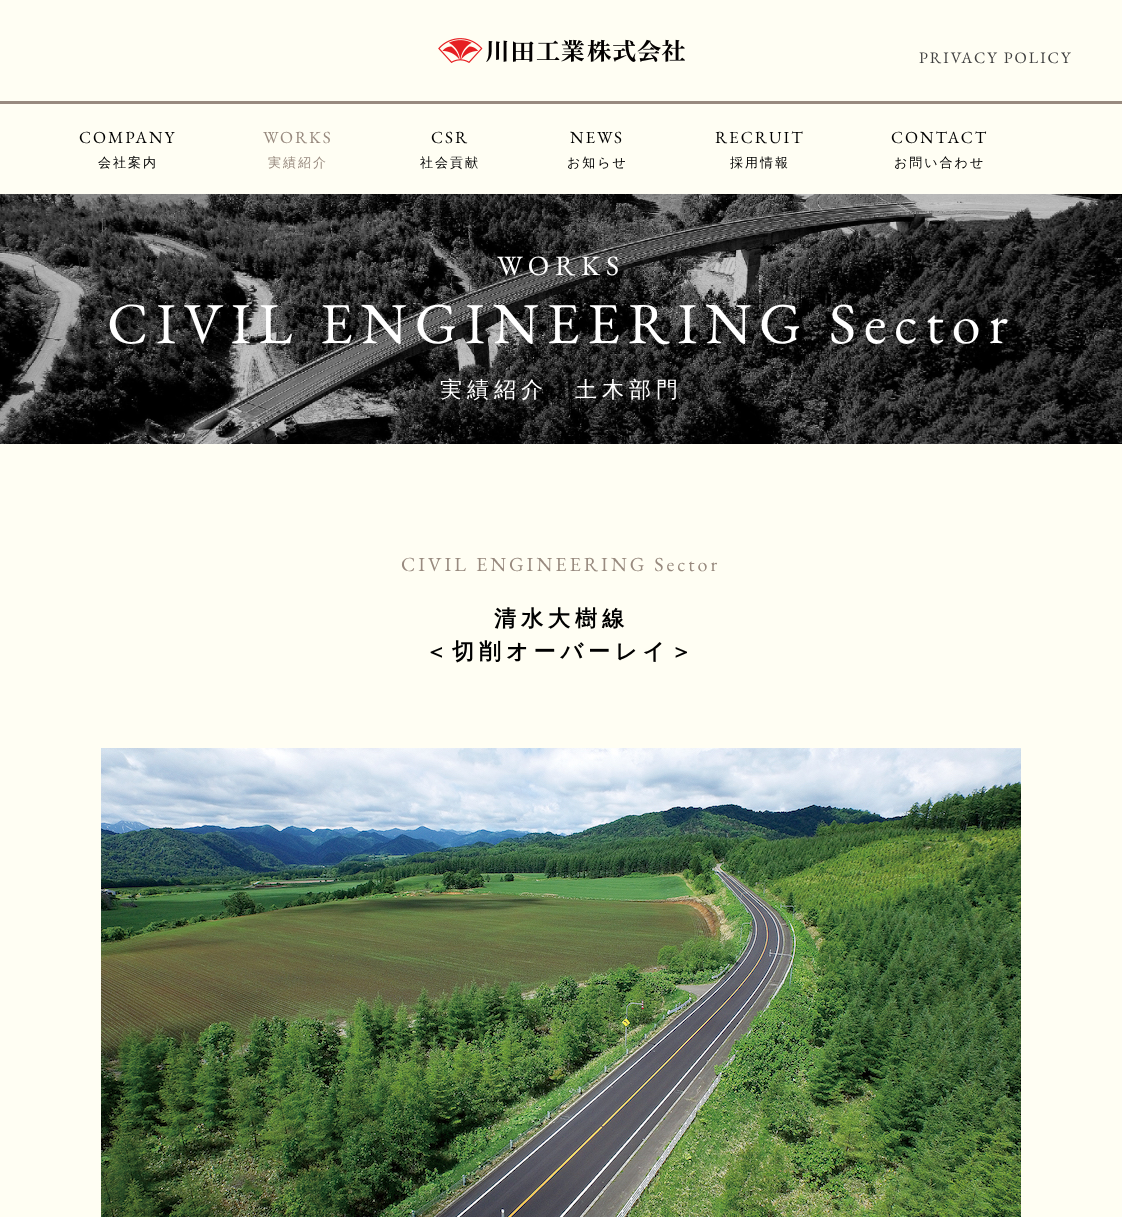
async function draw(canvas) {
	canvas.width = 1122;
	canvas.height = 1217;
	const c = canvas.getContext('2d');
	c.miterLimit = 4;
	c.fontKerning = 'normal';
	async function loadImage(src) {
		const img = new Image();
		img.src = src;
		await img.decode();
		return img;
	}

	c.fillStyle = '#fffef3';
	c.fillRect(0, 0, 1122, 1217);
	c.fillStyle = '#988a7f';
	c.fillRect(0, 101, 1122, 3);
	c.drawImage(await loadImage('img1.png'), 438, 38, 247, 25);
	c.letterSpacing = '2px';
	c.font = '16px EB Garamond';
	c.fillStyle = '#404040';
	c.fillText('PRIVACY POLICY', 919, 63);
	c.font = '17px EB Garamond';
	c.fillStyle = '#000';
	c.fillText('COMPANY', 79, 143);
	c.font = '500 13px WenQuanYi Zen Hei';
	c.fillText('会社案内', 98, 167);
	c.font = '17px EB Garamond';
	c.fillStyle = '#988a7f';
	c.fillText('WORKS', 263, 143);
	c.font = '500 13px WenQuanYi Zen Hei';
	c.fillText('実績紹介', 268, 167);
	c.font = '17px EB Garamond';
	c.fillStyle = '#000';
	c.fillText('CSR', 431, 143);
	c.font = '500 13px WenQuanYi Zen Hei';
	c.fillText('社会貢献', 420, 167);
	c.font = '17px EB Garamond';
	c.fillText('NEWS', 570, 143);
	c.font = '500 13px WenQuanYi Zen Hei';
	c.fillText('お知らせ', 567, 167);
	c.font = '17px EB Garamond';
	c.fillText('RECRUIT', 715, 143);
	c.font = '500 13px WenQuanYi Zen Hei';
	c.fillText('採用情報', 730, 167);
	c.font = '17px EB Garamond';
	c.fillText('CONTACT', 891, 143);
	c.font = '500 13px WenQuanYi Zen Hei';
	c.fillText('お問い合わせ', 894, 167);
	c.drawImage(await loadImage('img2.png'), 0, 194, 1122, 250);
	c.letterSpacing = '6px';
	c.font = '28px EB Garamond';
	c.fillStyle = '#fff';
	c.fillText('WORKS', 497, 275);
	c.letterSpacing = '8px';
	c.font = '58px EB Garamond';
	c.fillText('CIVIL ENGINEERING Sector', 107, 343);
	c.letterSpacing = '5px';
	c.font = '500 22px WenQuanYi Zen Hei';
	c.fillText('実績紹介　土木部門', 440, 397);
	c.letterSpacing = '3px';
	c.font = '20px EB Garamond';
	c.fillStyle = '#988a7f';
	c.fillText('CIVIL ENGINEERING Sector', 401, 571);
	c.letterSpacing = '5px';
	c.font = 'bold 22px WenQuanYi Zen Hei';
	c.fillStyle = '#000';
	c.fillText('清水大樹線', 494, 626);
	c.fillText('＜切削オーバーレイ＞', 425, 659);
	c.drawImage(await loadImage('img3.png'), 101, 748, 920, 469);
}

draw(document.querySelector('canvas'));
